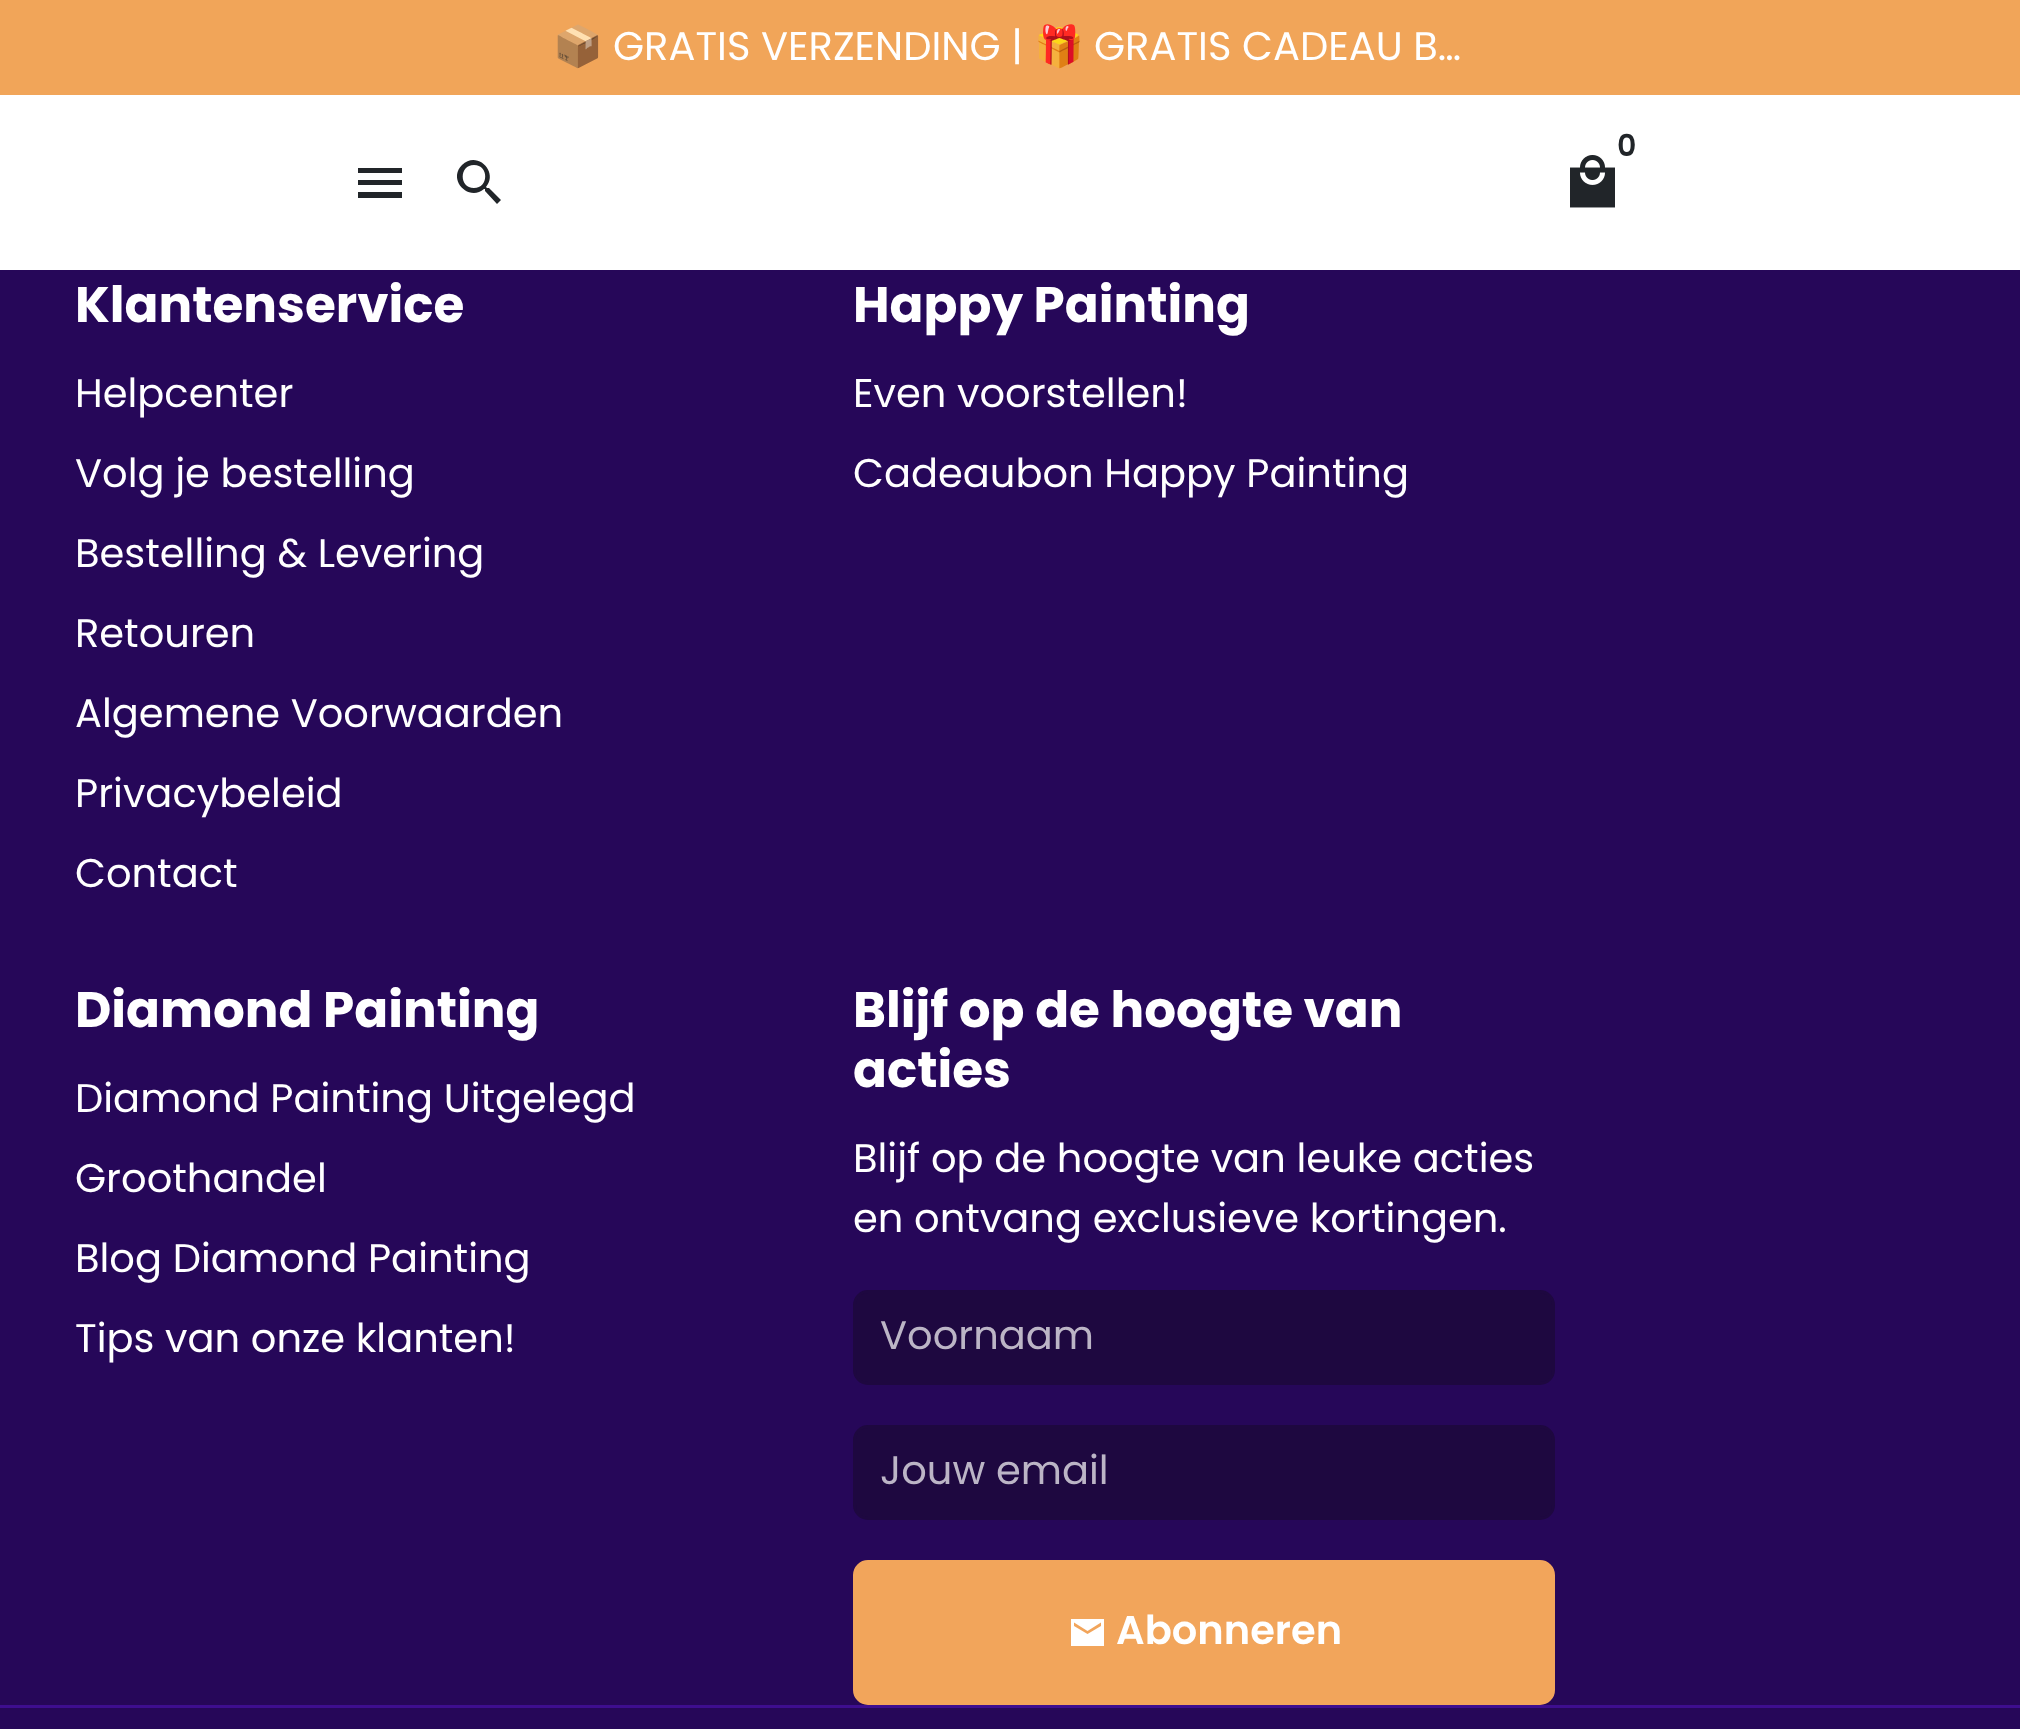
async function draw(canvas) {
	canvas.width = 2020;
	canvas.height = 1729;
	const c = canvas.getContext('2d');
	c.miterLimit = 4;
	c.fontKerning = 'normal';
	async function loadImage(src) {
		const img = new Image();
		img.src = src;
		await img.decode();
		return img;
	}

	c.fillStyle = '#260759';
	c.fillRect(0, 0, 2020, 1729);
	c.fillStyle = '#f1a559';
	c.fillRect(0, 0, 2020, 95);
	c.save();
	c.beginPath();
	c.rect(553, 18, 915, 60);
	c.clip();
	c.font = '40px Noto Color Emoji';
	c.fillStyle = '#fff';
	c.fillText('📦', 553, 60);
	c.restore();
	c.font = '40px Poppins';
	c.fillStyle = '#fff';
	c.fillText('GRATIS VERZENDING |', 613, 60);
	c.font = '40px Noto Color Emoji';
	c.fillText('🎁', 1034, 60);
	c.font = '40px Poppins';
	c.fillText('GRATIS CADEAU B…', 1094, 60);
	c.fillRect(0, 95, 2020, 175);
	c.font = '600 30px Poppins';
	c.fillStyle = '#212529';
	c.fillText('0', 1617, 156);
	c.drawImage(await loadImage('img1.png'), 1570, 155, 45, 53);
	c.beginPath();
	c.moveTo(358, 198);
	c.lineTo(402, 198);
	c.lineTo(402, 192);
	c.lineTo(358, 192);
	c.closePath();
	c.moveTo(358, 185);
	c.lineTo(402, 185);
	c.lineTo(402, 180);
	c.lineTo(358, 180);
	c.closePath();
	c.moveTo(358, 168);
	c.lineTo(358, 173);
	c.lineTo(402, 173);
	c.lineTo(402, 168);
	c.closePath();
	c.fill();
	c.beginPath();
	c.moveTo(489, 188);
	c.lineTo(487, 188);
	c.lineTo(486, 187);
	c.bezierCurveTo(499, 172, 477, 150, 462, 165);
	c.bezierCurveTo(447, 180, 469, 202, 484, 189);
	c.lineTo(485, 189);
	c.lineTo(485, 191);
	c.lineTo(497, 204);
	c.lineTo(501, 200);
	c.closePath();
	c.moveTo(474, 188);
	c.bezierCurveTo(459, 188, 459, 165, 474, 165);
	c.bezierCurveTo(489, 165, 489, 188, 474, 188);
	c.closePath();
	c.fill();
	c.font = 'bold 50px Poppins';
	c.fillStyle = '#fff';
	c.fillText('Klantenservice', 75, 322);
	c.font = '40px Poppins';
	for (const [text, x, y] of [
		['Helpcenter', 75, 407],
		['Volg je bestelling', 75, 487],
		['Bestelling & Levering', 75, 567],
		['Retouren', 75, 647],
		['Algemene Voorwaarden', 75, 727],
		['Privacybeleid', 75, 807],
		['Contact', 75, 887],
	]) {
		c.fillText(text, x, y);
	}
	c.font = 'bold 50px Poppins';
	c.fillText('Happy Painting', 853, 322);
	c.font = '40px Poppins';
	c.fillText('Even voorstellen!', 853, 407);
	c.fillText('Cadeaubon Happy Painting', 853, 487);
	c.font = 'bold 50px Poppins';
	c.fillText('Diamond Painting', 75, 1027);
	c.font = '40px Poppins';
	for (const [text, x, y] of [
		['Diamond Painting Uitgelegd', 75, 1112],
		['Groothandel', 75, 1192],
		['Blog Diamond Painting', 75, 1272],
		['Tips van onze klanten!', 75, 1352],
	]) {
		c.fillText(text, x, y);
	}
	c.font = 'bold 50px Poppins';
	c.fillText('Blijf op de hoogte van', 853, 1027);
	c.fillText('acties', 853, 1087);
	c.font = '40px Poppins';
	c.fillText('Blijf op de hoogte van leuke acties', 853, 1172);
	c.fillText('en ontvang exclusieve kortingen.', 853, 1232);
	c.fillStyle = '#1e0840';
	c.beginPath();
	c.roundRect(854.5, 1291.5, 699, 92, 13.5);
	c.fill();
	c.strokeStyle = '#1e0840';
	c.lineWidth = 3;
	c.stroke();
	c.fillStyle = '#bcb5c6';
	c.fillText('Voornaam', 880, 1349);
	c.fillStyle = '#1e0840';
	c.beginPath();
	c.roundRect(854.5, 1426.5, 699, 92, 13.5);
	c.fill();
	c.stroke();
	c.fillStyle = '#bcb5c6';
	c.fillText('Jouw email', 880, 1484);
	c.fillStyle = '#f2a55b';
	c.beginPath();
	c.roundRect(854.5, 1561.5, 699, 142, 13.5);
	c.fill();
	c.strokeStyle = '#f2a55b';
	c.stroke();
	c.fillStyle = '#fff';
	c.beginPath();
	c.moveTo(1104, 1619);
	c.lineTo(1071, 1619);
	c.lineTo(1071, 1646);
	c.lineTo(1104, 1646);
	c.closePath();
	c.moveTo(1101, 1626);
	c.lineTo(1087.5, 1634);
	c.lineTo(1074, 1626);
	c.lineTo(1074, 1622.5);
	c.lineTo(1087.5, 1631);
	c.lineTo(1101, 1622.5);
	c.closePath();
	c.fill();
	c.font = '600 40px Poppins';
	c.fillText('Abonneren', 1116, 1644);
	c.fillStyle = '#3e0e8f';
	c.fillRect(0, 1705, 2020, 3);
}

draw(document.querySelector('canvas'));
